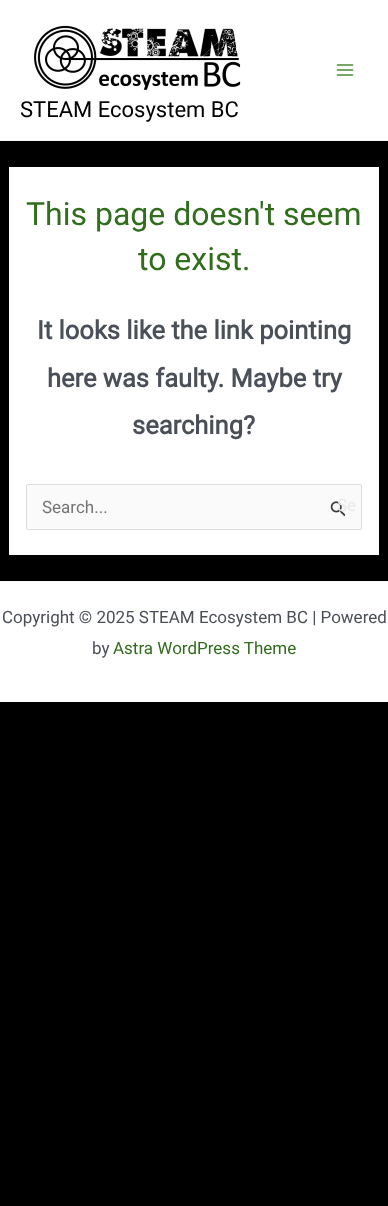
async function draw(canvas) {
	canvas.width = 388;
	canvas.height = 1206;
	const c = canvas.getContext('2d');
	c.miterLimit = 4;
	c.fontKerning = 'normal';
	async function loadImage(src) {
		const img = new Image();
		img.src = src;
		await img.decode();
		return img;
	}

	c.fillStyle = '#000';
	c.fillRect(0, 0, 388, 1206);
	c.fillStyle = '#fff';
	c.fillRect(0, 0, 388, 140);
	c.fillStyle = '#f2f5f7';
	c.fillRect(0, 140, 388, 1);
	c.drawImage(await loadImage('img1.png'), 336, 64, 18, 12);
	c.drawImage(await loadImage('img2.png'), 34, 25, 207, 65);
	c.font = '22px Roboto';
	c.fillStyle = '#000';
	c.fillText('STEAM Ecosystem BC', 20, 117);
	c.fillStyle = '#fff';
	c.fillRect(9, 167, 370, 388);
	c.font = '32px Roboto';
	c.fillStyle = '#306d1c';
	c.fillText('This page doesn\'t seem', 26, 225);
	c.fillText('to exist.', 138, 270);
	c.font = 'bold 25.5px Roboto';
	c.fillStyle = '#4b4f58';
	for (const [text, x, y] of [
		['It looks like the link pointing', 37, 339],
		['here was faulty. Maybe try', 47, 387],
		['searching?', 132, 434],
	]) {
		c.fillText(text, x, y);
	}
	c.fillStyle = '#fafafa';
	c.beginPath();
	c.roundRect(26.5, 484.5, 335, 45, 1.5);
	c.fill();
	c.strokeStyle = '#ddd';
	c.stroke();
	c.font = '17px Roboto';
	c.fillStyle = '#757575';
	c.fillText('Search...', 42, 513);
	c.drawImage(await loadImage('img3.png'), 330, 501, 15, 16);
	c.fillStyle = '#e9e9e9';
	c.fillText('Se', 337, 511);
	c.fillStyle = '#fff';
	c.fillRect(0, 582, 388, 120);
	c.fillStyle = '#f2f5f7';
	c.fillRect(0, 581, 388, 1);
	c.fillStyle = '#4b4f58';
	c.fillText('Copyright © 2025 STEAM Ecosystem BC | Powered', 2, 623);
	c.fillText('by', 92, 654);
	c.fillStyle = '#306d1c';
	c.fillText('Astra WordPress Theme', 113, 654);
}

draw(document.querySelector('canvas'));
